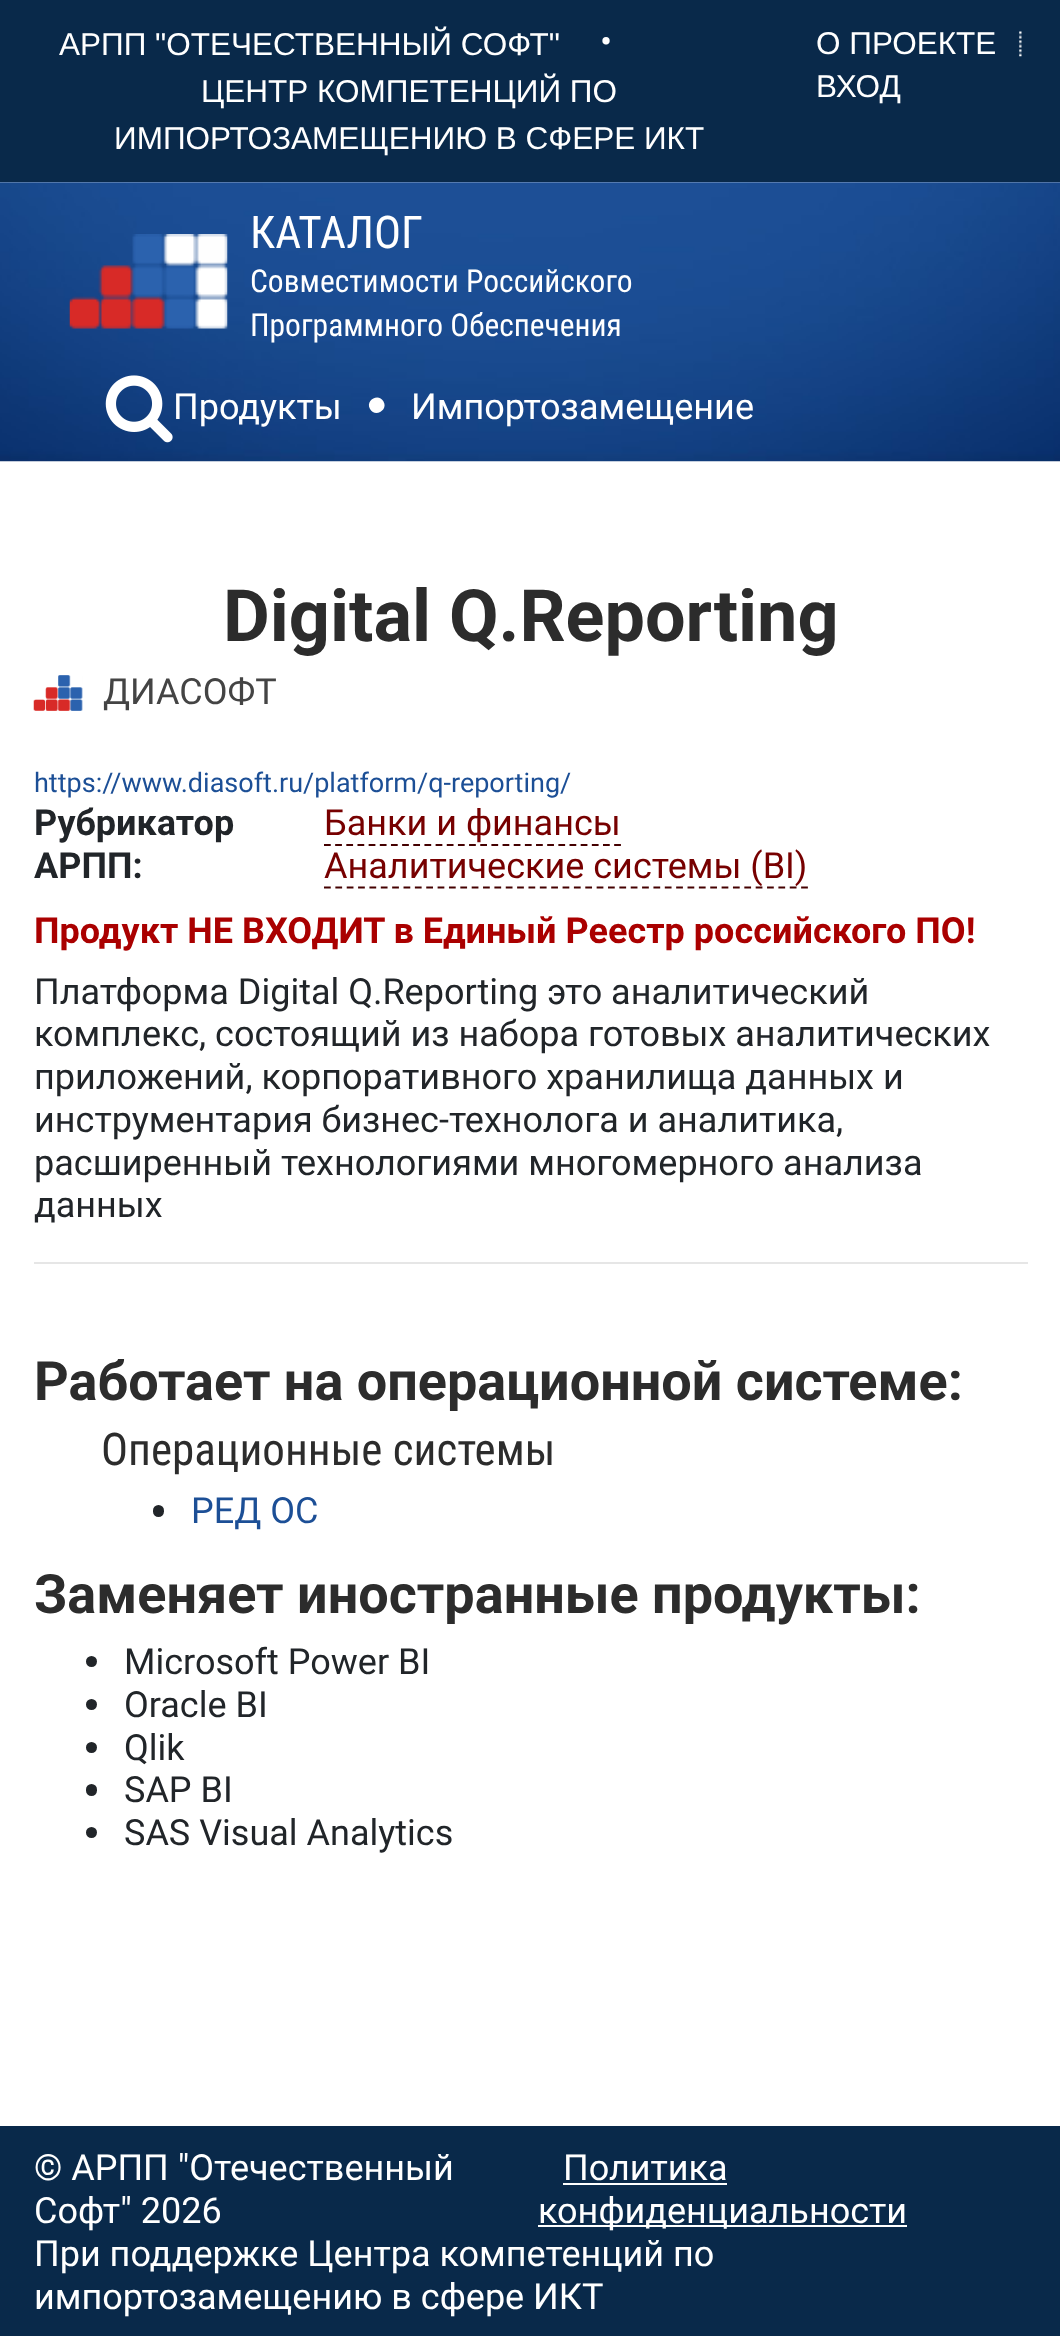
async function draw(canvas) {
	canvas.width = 1060;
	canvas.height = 2336;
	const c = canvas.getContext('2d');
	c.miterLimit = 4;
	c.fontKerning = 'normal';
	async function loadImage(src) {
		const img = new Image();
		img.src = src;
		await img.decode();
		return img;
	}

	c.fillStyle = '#fff';
	c.fillRect(0, 0, 1060, 2336);
	c.fillStyle = '#09294a';
	c.fillRect(0, 0, 1060, 182);
	c.font = '31.5px Liberation Sans';
	c.fillStyle = '#fff';
	c.fillText('АРПП "ОТЕЧЕСТВЕННЫЙ СОФТ"', 59, 55);
	c.font = '36px Roboto';
	c.fillText('•', 600, 54);
	c.font = '31.5px Liberation Sans';
	for (const [text, x, y] of [
		['ЦЕНТР КОМПЕТЕНЦИЙ ПО', 201, 102],
		['ИМПОРТОЗАМЕЩЕНИЮ В СФЕРЕ ИКТ', 114, 149],
		['О ПРОЕКТЕ', 816, 54],
	]) {
		c.fillText(text, x, y);
	}
	c.drawImage(await loadImage('img1.png'), 1019, 31, 3, 26);
	c.fillText('ВХОД', 816, 97);
	c.drawImage(await loadImage('img2.png'), 0, 182, 1060, 280);
	c.drawImage(await loadImage('img3.png'), 69, 234, 159, 95);
	c.font = '45px Roboto Condensed';
	c.fillText('КАТАЛОГ', 250, 248);
	c.font = '31.5px Roboto Condensed';
	c.fillText('Совместимости Российского', 250, 292);
	c.fillText('Программного Обеспечения', 250, 336);
	c.drawImage(await loadImage('img4.png'), 105, 375, 68, 68);
	c.font = '36px Roboto';
	c.fillText('Продукты', 173, 419);
	c.beginPath();
	c.moveTo(383.5, 401.5);
	c.bezierCurveTo(388.5, 410, 375, 418, 370, 409);
	c.bezierCurveTo(365, 400.5, 378.5, 392.5, 383.5, 401.5);
	c.closePath();
	c.fill();
	c.fillText('Импортозамещение', 411, 419);
	c.font = 'bold 72px Roboto';
	c.fillStyle = '#2c2c2c';
	c.fillText('Digital Q.Reporting', 223, 641);
	c.drawImage(await loadImage('img5.png'), 33, 675, 50, 36);
	c.font = '36px Roboto';
	c.fillStyle = '#444';
	c.fillText('ДИАСОФТ', 103, 704);
	c.font = '27px Roboto';
	c.fillStyle = '#1c4f96';
	c.fillText('https://www.diasoft.ru/platform/q-reporting/', 34, 792);
	c.font = 'bold 36px "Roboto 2"';
	c.fillStyle = '#212529';
	c.fillText('Рубрикатор', 34, 835);
	c.fillText('АРПП:', 34, 878);
	c.font = '36px Roboto';
	c.fillStyle = '#700';
	c.fillText('Банки и финансы', 324, 835);
	c.beginPath();
	c.moveTo(324, 845);
	c.lineTo(621, 845);
	c.strokeStyle = '#400';
	c.lineWidth = 2.2;
	c.setLineDash([6.75, 4.41]);
	c.stroke();
	c.beginPath();
	c.moveTo(324, 887.5);
	c.lineTo(808, 887.5);
	c.setLineDash([6.75, 4.61]);
	c.stroke();
	c.fillText('Аналитические системы (BI)', 324, 878);
	c.font = 'bold 36px "Roboto 2"';
	c.fillStyle = '#a00';
	c.fillText('Продукт НЕ ВХОДИТ в Единый Реестр российского ПО!', 34, 943);
	c.font = '36px Roboto';
	c.fillStyle = '#212529';
	for (const [text, x, y] of [
		['Платформа Digital Q.Reporting это аналитический', 34, 1004],
		['комплекс, состоящий из набора готовых аналитических', 34, 1046],
		['приложений, корпоративного хранилища данных и', 34, 1089],
		['инструментария бизнес-технолога и аналитика,', 34, 1132],
		['расширенный технологиями многомерного анализа', 34, 1175],
		['данных', 34, 1217],
	]) {
		c.fillText(text, x, y);
	}
	c.fillStyle = '#e6e6e6';
	c.fillRect(34, 1262, 994, 2);
	c.font = 'bold 54px Roboto';
	c.fillStyle = '#2c2c2c';
	c.fillText('Работает на операционной системе:', 34, 1400);
	c.font = '45px Roboto Condensed';
	c.fillText('Операционные системы', 101, 1465);
	c.fillStyle = '#212529';
	c.beginPath();
	c.roundRect(153, 1505, 11, 12, 5.5);
	c.fill();
	c.font = '36px Roboto';
	c.fillStyle = '#1c4f96';
	c.fillText('РЕД ОС', 191, 1523);
	c.font = 'bold 54px Roboto';
	c.fillStyle = '#2c2c2c';
	c.fillText('Заменяет иностранные продукты:', 34, 1613);
	c.fillStyle = '#212529';
	c.beginPath();
	c.arc(91.5, 1661.5, 5.5, 0, 2 * Math.PI);
	c.fill();
	c.font = '36px Roboto';
	c.fillText('Microsoft Power BI', 124, 1674);
	c.beginPath();
	c.arc(91.5, 1704.5, 5.5, 0, 2 * Math.PI);
	c.fill();
	c.fillText('Oracle BI', 124, 1717);
	c.beginPath();
	c.arc(91.5, 1747.5, 5.5, 0, 2 * Math.PI);
	c.fill();
	c.fillText('Qlik', 124, 1760);
	c.beginPath();
	c.roundRect(86, 1784, 11, 12, 5.5);
	c.fill();
	c.fillText('SAP BI', 124, 1802);
	c.beginPath();
	c.arc(91.5, 1832.5, 5.5, 0, 2 * Math.PI);
	c.fill();
	c.fillText('SAS Visual Analytics', 124, 1845);
	c.fillStyle = '#09294a';
	c.fillRect(0, 2126, 1060, 210);
	c.fillStyle = '#fff';
	for (const [text, x, y] of [
		['© АРПП "Отечественный', 34, 2180],
		['Софт" 2026', 34, 2223],
		['Политика', 563, 2180],
	]) {
		c.fillText(text, x, y);
	}
	c.fillRect(563, 2183, 164, 2);
	c.fillRect(538, 2225, 369, 2);
	for (const [text, x, y] of [
		['конфиденциальности', 538, 2223],
		['При поддержке Центра компетенций по', 34, 2266],
		['импортозамещению в сфере ИКТ', 34, 2309],
	]) {
		c.fillText(text, x, y);
	}
}

draw(document.querySelector('canvas'));
